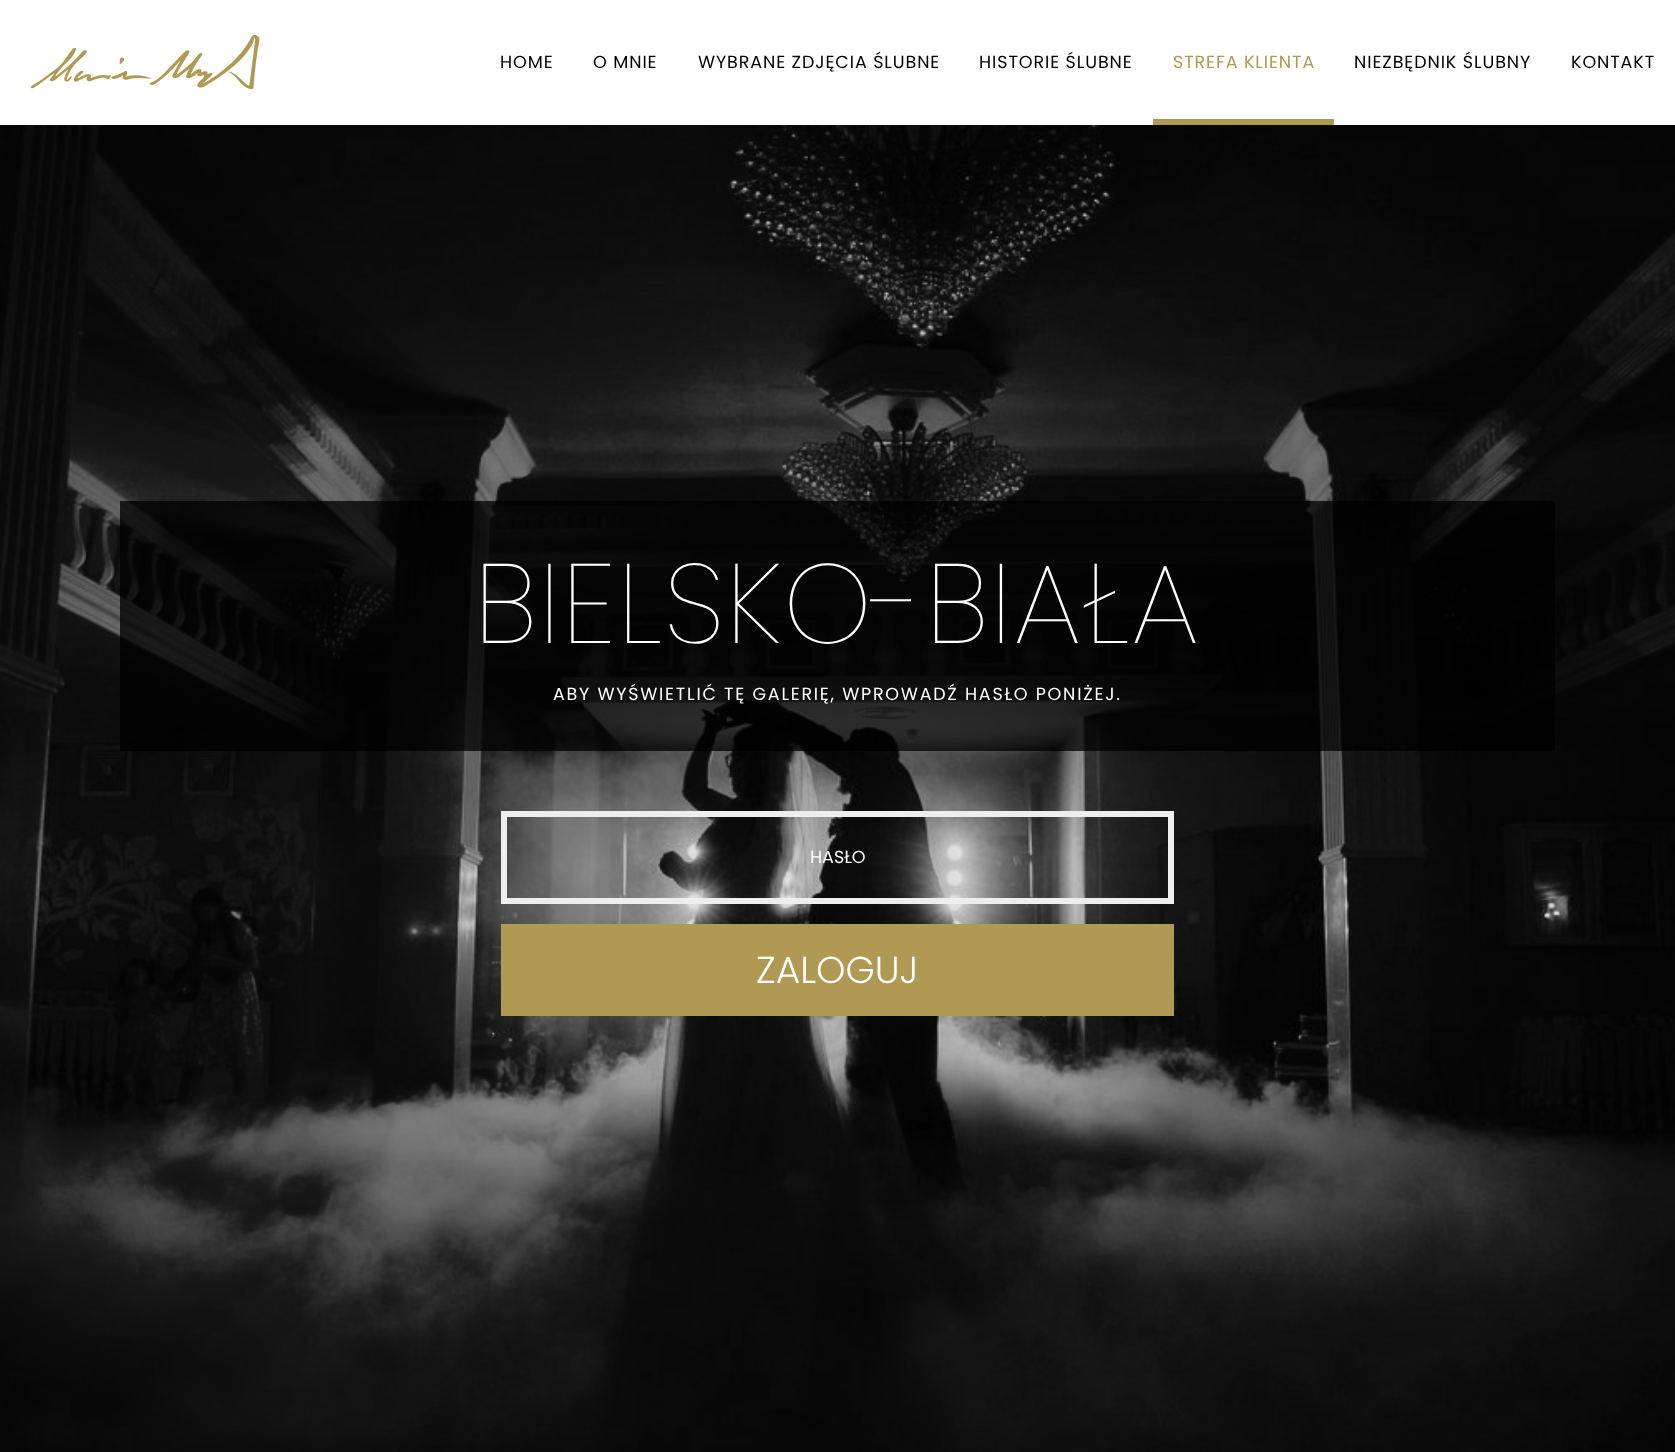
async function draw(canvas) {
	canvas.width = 1675;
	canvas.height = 1452;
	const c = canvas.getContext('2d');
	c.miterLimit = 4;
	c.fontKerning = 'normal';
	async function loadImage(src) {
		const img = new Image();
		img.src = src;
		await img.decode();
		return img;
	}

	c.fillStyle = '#fff';
	c.fillRect(0, 0, 1675, 1452);
	c.drawImage(await loadImage('img1.png'), 30, 35, 230, 55);
	c.letterSpacing = '0.9px';
	c.font = '17.5px Poppins';
	c.fillStyle = '#000';
	for (const [text, x, y] of [
		['HOME', 500, 68],
		['O MNIE', 593, 68],
		['WYBRANE ZDJĘCIA ŚLUBNE', 698, 68],
		['HISTORIE ŚLUBNE', 979, 68],
	]) {
		c.fillText(text, x, y);
	}
	c.fillStyle = '#b09953';
	c.fillText('STREFA KLIENTA', 1173, 68);
	c.fillRect(1153, 119, 181, 6);
	c.fillStyle = '#000';
	c.fillText('NIEZBĘDNIK ŚLUBNY', 1354, 68);
	c.fillText('KONTAKT', 1571, 68);
	c.drawImage(await loadImage('img2.png'), 0, 125, 1675, 1327);
	c.fillStyle = '#000000bf';
	c.fillRect(120, 501, 1435, 250);
	c.letterSpacing = '1.75px';
	c.font = '100 112.5px Poppins';
	c.fillStyle = '#fff';
	c.fillText('BIELSKO-BIAŁA', 474, 643);
	c.font = '17.5px Poppins';
	c.fillText('ABY WYŚWIETLIĆ TĘ GALERIĘ, WPROWADŹ HASŁO PONIŻEJ.', 553, 700);
	c.strokeStyle = '#eee';
	c.lineWidth = 6;
	c.strokeRect(504, 814, 667, 87);
	c.letterSpacing = '0px';
	c.fillText('HASŁO', 810, 863);
	c.fillStyle = '#b09953';
	c.fillRect(501, 924, 673, 92);
	c.font = '300 37.5px Poppins';
	c.fillStyle = '#fff';
	c.fillText('ZALOGUJ', 756, 983);
}

draw(document.querySelector('canvas'));
